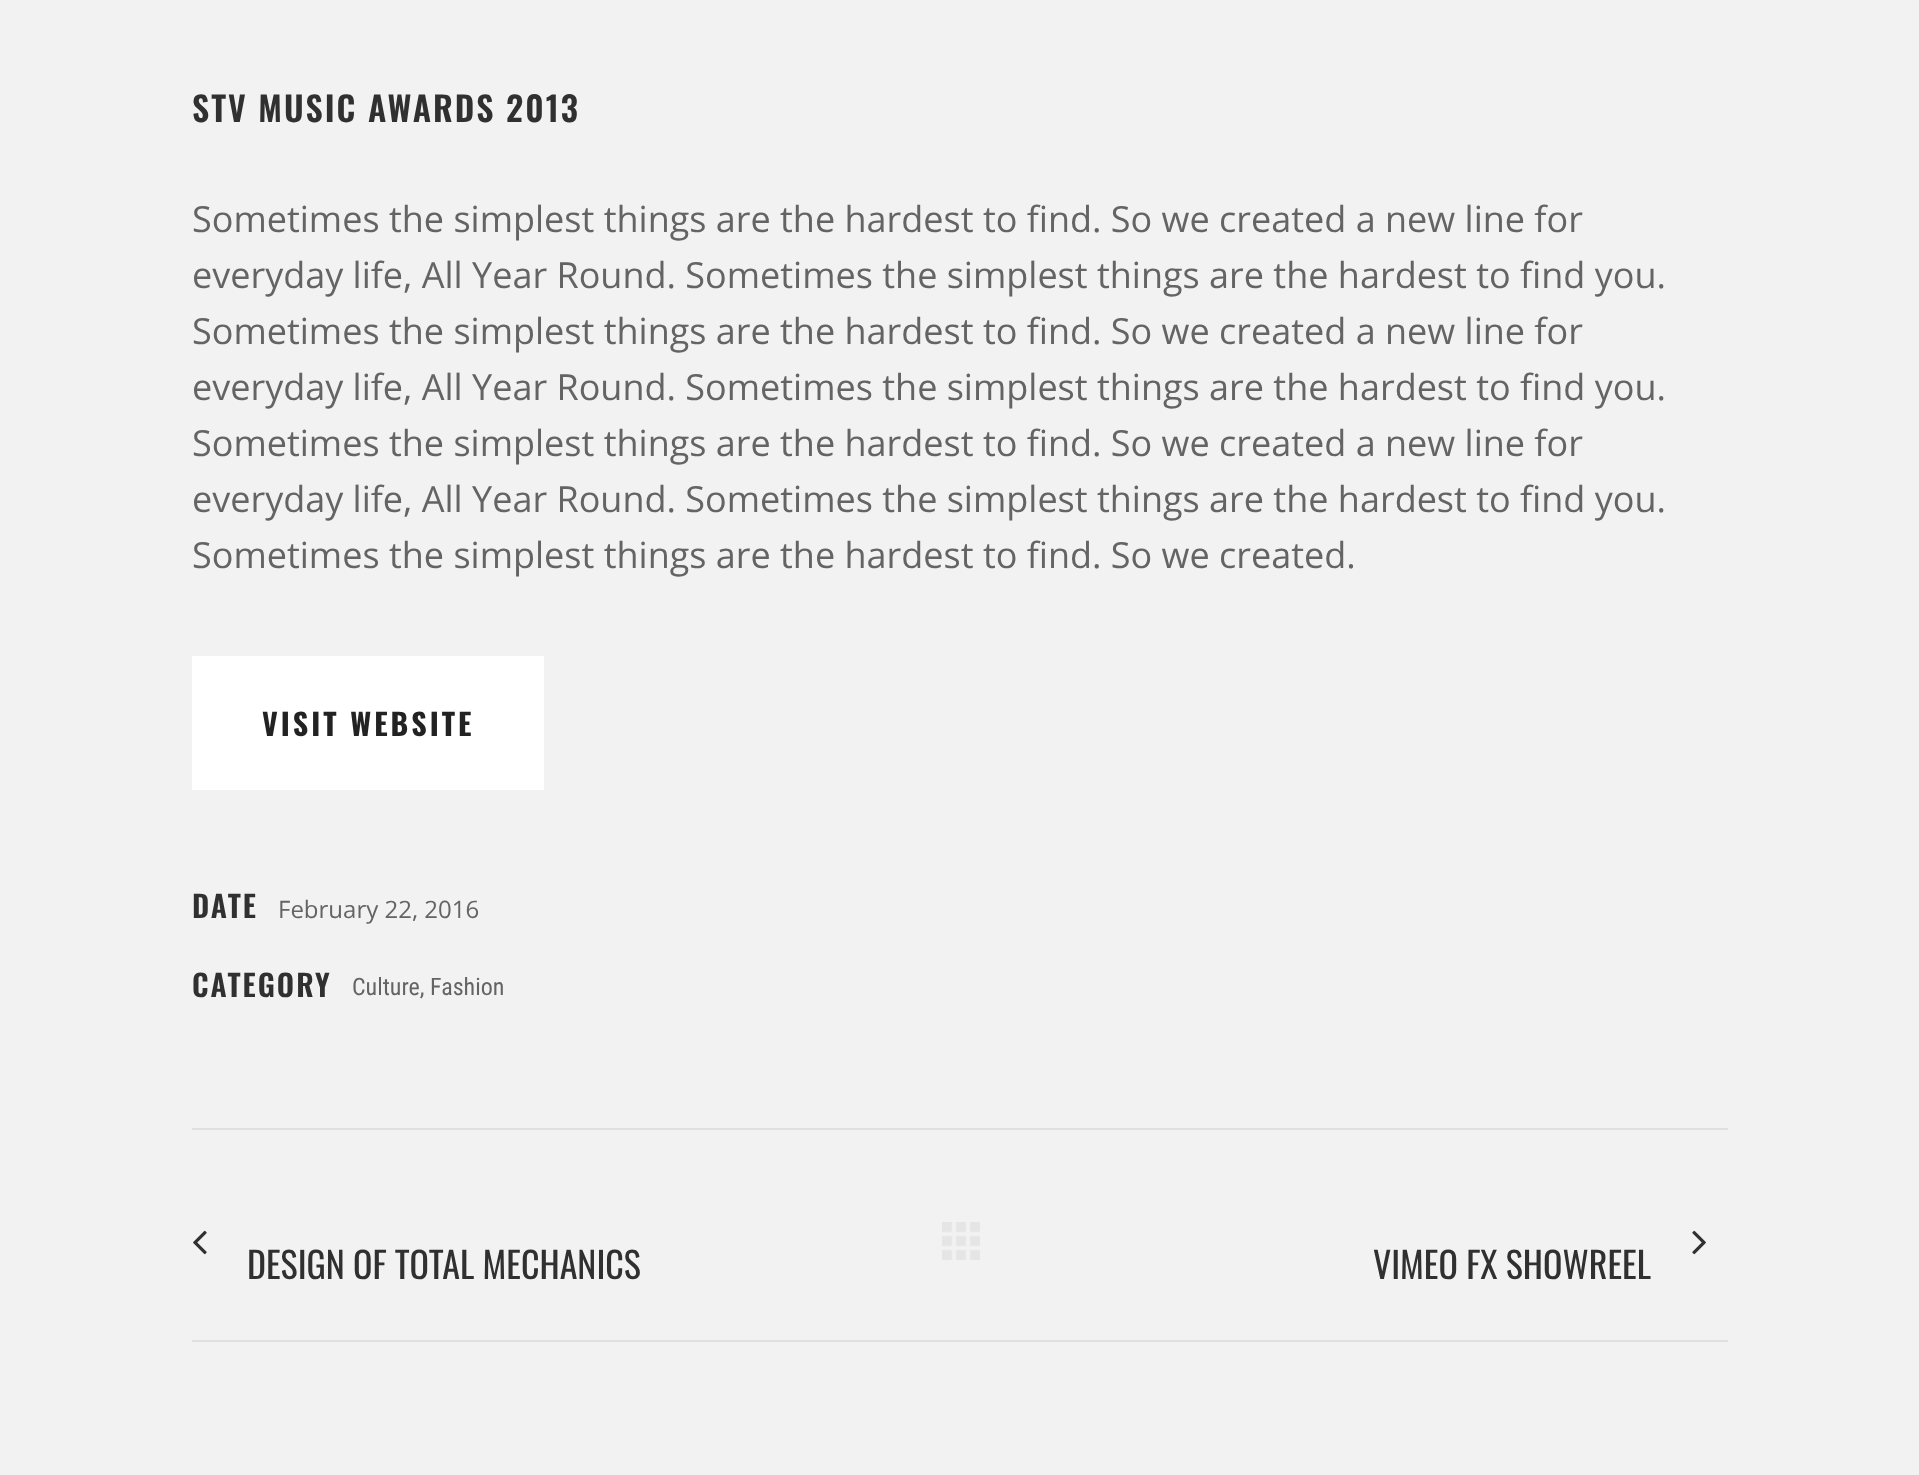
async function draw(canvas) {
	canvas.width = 1919;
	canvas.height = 1475;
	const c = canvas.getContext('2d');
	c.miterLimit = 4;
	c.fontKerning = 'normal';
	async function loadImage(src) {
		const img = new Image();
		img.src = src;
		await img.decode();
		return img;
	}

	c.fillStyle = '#f2f2f2';
	c.fillRect(0, 0, 1919, 1475);
	c.letterSpacing = '2px';
	c.font = '600 34px Oswald';
	c.fillStyle = '#303030';
	c.fillText('STV MUSIC AWARDS 2013', 192, 122);
	c.letterSpacing = '0px';
	c.font = '36px Open Sans';
	c.fillStyle = '#646464';
	for (const [text, x, y] of [
		['Sometimes the simplest things are the hardest to find. So we created a new line for', 192, 232],
		['everyday life, All Year Round. Sometimes the simplest things are the hardest to find you.', 192, 288],
		['Sometimes the simplest things are the hardest to find. So we created a new line for', 192, 344],
		['everyday life, All Year Round. Sometimes the simplest things are the hardest to find you.', 192, 400],
		['Sometimes the simplest things are the hardest to find. So we created a new line for', 192, 456],
		['everyday life, All Year Round. Sometimes the simplest things are the hardest to find you.', 192, 512],
		['Sometimes the simplest things are the hardest to find. So we created.', 192, 568],
	]) {
		c.fillText(text, x, y);
	}
	c.fillStyle = '#fff';
	c.fillRect(192, 656, 352, 134);
	c.letterSpacing = '3px';
	c.font = 'bold 30px Oswald';
	c.fillStyle = '#222';
	c.fillText('VISIT WEBSITE', 262, 736);
	c.letterSpacing = '2px';
	c.font = '600 30px Oswald';
	c.fillStyle = '#303030';
	c.fillText('DATE', 192, 918);
	c.letterSpacing = '0px';
	c.font = '24px Open Sans';
	c.fillStyle = '#646464';
	c.fillText('February 22, 2016', 278, 918);
	c.letterSpacing = '2px';
	c.font = '600 30px Oswald';
	c.fillStyle = '#303030';
	c.fillText('CATEGORY', 192, 997);
	c.letterSpacing = '0px';
	c.font = '24px Roboto Condensed';
	c.fillStyle = '#646464';
	c.fillText('Culture, Fashion', 352, 995);
	c.fillStyle = '#e0e0e0';
	c.fillRect(192, 1128, 1536, 2);
	c.fillRect(192, 1340, 1536, 2);
	c.drawImage(await loadImage('img1.png'), 942, 1222, 38, 38);
	c.drawImage(await loadImage('img2.png'), 193, 1230, 14, 25);
	c.font = '36px Oswald';
	c.fillStyle = '#303030';
	c.fillText('DESIGN OF TOTAL MECHANICS', 247, 1279);
	c.drawImage(await loadImage('img3.png'), 1692, 1230, 14, 25);
	c.fillText('VIMEO FX SHOWREEL', 1373, 1279);
}

draw(document.querySelector('canvas'));
